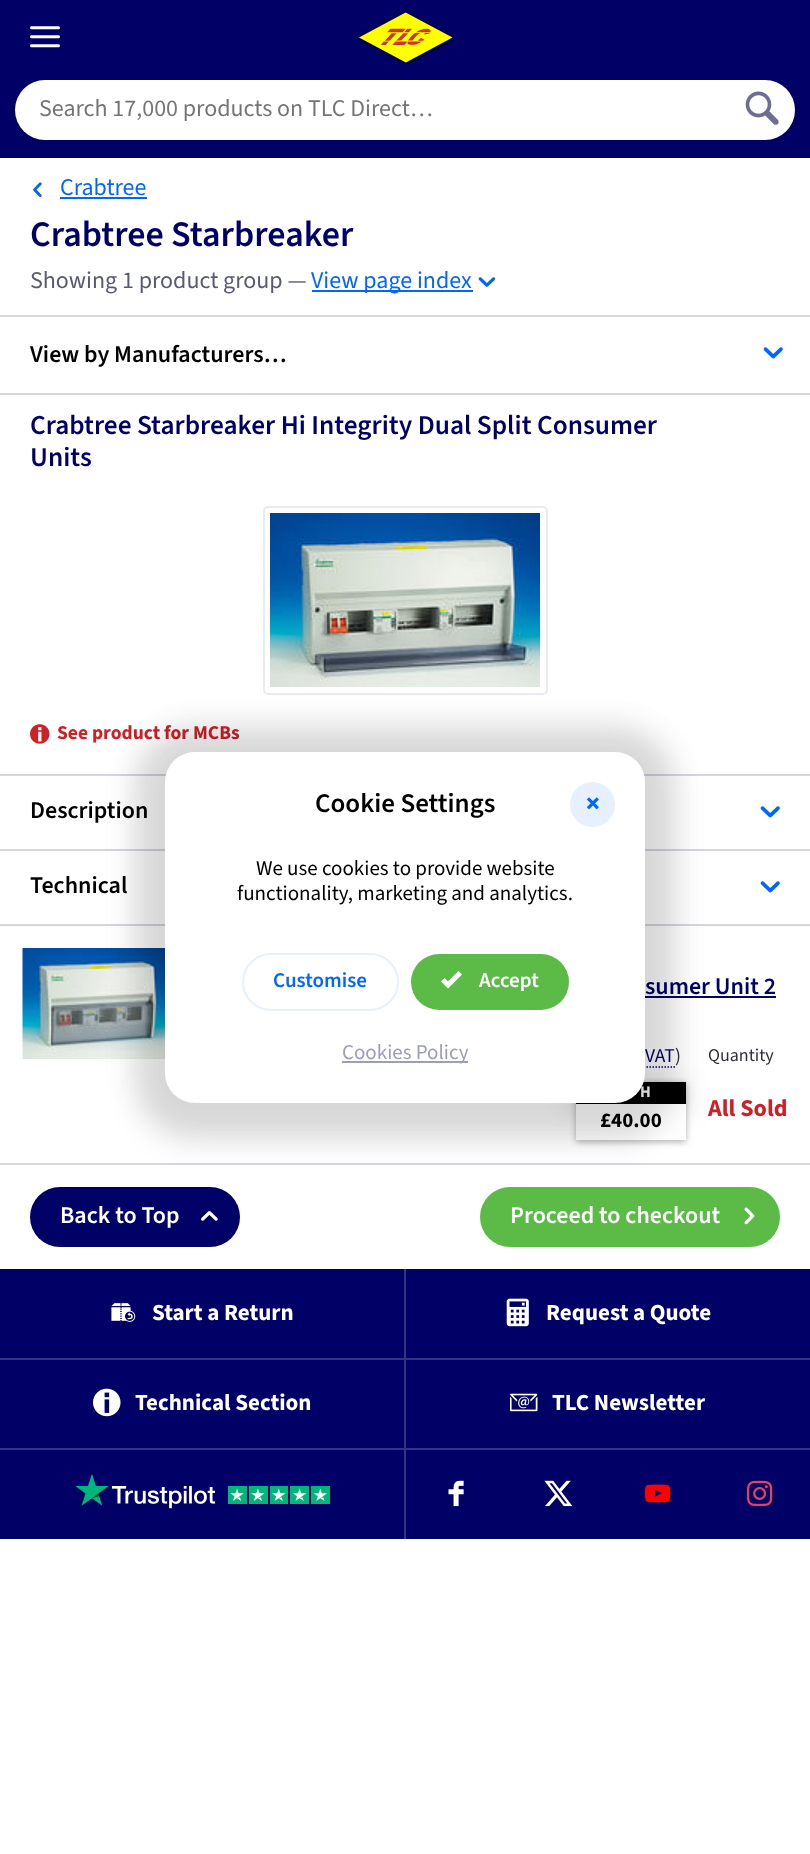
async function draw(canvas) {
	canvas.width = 810;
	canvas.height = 1854;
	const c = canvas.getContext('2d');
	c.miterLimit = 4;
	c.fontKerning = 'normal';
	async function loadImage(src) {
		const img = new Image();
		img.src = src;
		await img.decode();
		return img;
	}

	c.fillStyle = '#fff';
	c.fillRect(0, 0, 810, 1854);
	c.fillStyle = '#006';
	c.fillRect(0, 0, 810, 158);
	c.drawImage(await loadImage('img1.png'), 30, 26, 30, 22);
	c.drawImage(await loadImage('img2.png'), 358, 10, 96, 55);
	c.fillStyle = '#fff';
	c.beginPath();
	c.roundRect(15, 80, 780, 60, 30);
	c.fill();
	c.font = '24px "Source Sans 3"';
	c.fillStyle = '#757575';
	c.fillText('Search 17,000 products on TLC Direct…', 39, 116);
	c.drawImage(await loadImage('img3.png'), 745, 91, 34, 34);
	c.drawImage(await loadImage('img4.png'), 33, 182, 9, 16);
	c.fillStyle = '#06f';
	c.fillText('Crabtree', 60, 195);
	c.fillRect(60, 197, 87, 2);
	c.font = '600 36px "Source Sans 3"';
	c.fillStyle = '#006';
	c.fillText('Crabtree Starbreaker', 30, 246);
	c.font = '24px "Source Sans 3"';
	c.fillStyle = '#595973';
	c.fillText('Showing 1 product group —', 30, 288);
	c.fillStyle = '#06f';
	c.fillRect(312, 290, 161, 2);
	c.fillText('View page index', 311, 288);
	c.drawImage(await loadImage('img5.png'), 478, 277, 18, 10);
	c.fillStyle = '#d5d5e2';
	c.fillRect(0, 315, 810, 2);
	c.fillRect(0, 393, 810, 2);
	c.font = '600 24px "Source Sans 3"';
	c.fillStyle = '#000';
	c.fillText('View by Manufacturers…', 30, 362);
	c.drawImage(await loadImage('img6.png'), 763, 347, 20, 12);
	c.font = '600 27.3px "Source Sans 3"';
	c.fillStyle = '#006';
	c.fillText('Crabtree Starbreaker Hi Integrity Dual Split Consumer', 30, 434);
	c.fillText('Units', 30, 466);
	c.beginPath();
	c.roundRect(264, 507, 283, 187, 4);
	c.strokeStyle = '#eaeaf1';
	c.lineWidth = 2;
	c.stroke();
	c.drawImage(await loadImage('img7.png'), 270, 513, 270, 174);
	c.drawImage(await loadImage('img8.png'), 30, 724, 20, 20);
	c.font = 'bold 19.5px "Source Sans 3"';
	c.fillStyle = '#cc2127';
	c.fillText('See product for MCBs', 57, 739);
	c.fillStyle = '#d5d5e2';
	c.fillRect(0, 774, 810, 2);
	c.fillRect(0, 849, 810, 2);
	c.font = '600 24px "Source Sans 3"';
	c.fillStyle = '#000';
	c.fillText('Description', 30, 818);
	c.drawImage(await loadImage('img6.png'), 760, 806, 20, 12);
	c.fillStyle = '#d5d5e2';
	c.fillRect(0, 924, 810, 2);
	c.fillStyle = '#000';
	c.fillText('Technical', 30, 893);
	c.drawImage(await loadImage('img6.png'), 760, 881, 20, 12);
	c.fillStyle = '#d5d5e2';
	c.fillRect(0, 1163, 810, 2);
	c.drawImage(await loadImage('img9.png'), 22, 948, 143, 111);
	c.fillStyle = '#006';
	c.fillText('sumer Unit 2', 645, 994);
	c.fillRect(645, 996, 131, 2);
	c.fillStyle = '#000000cc';
	c.filter = 'blur(15px)';
	c.beginPath();
	c.roundRect(576, 1097, 110, 5, 2.5);
	c.fill();
	c.filter = 'none';
	c.beginPath();
	c.moveTo(622.5, 1067);
	c.lineTo(675, 1067);
	c.strokeStyle = '#006';
	c.lineWidth = 1.5;
	c.setLineDash([1.5, 1.5]);
	c.stroke();
	c.font = '19.5px "Source Sans 3"';
	c.fillStyle = '#006';
	c.fillText('VAT', 645, 1062);
	c.fillStyle = '#2e2e38';
	c.fillText(')', 675, 1062);
	c.fillStyle = '#0000004d';
	c.filter = 'blur(3px)';
	c.beginPath();
	c.rect(576, 1083, 110, 59);
	c.fill();
	c.filter = 'none';
	c.fillStyle = '#000';
	c.fillRect(576, 1082, 110, 22);
	c.letterSpacing = '2px';
	c.font = 'bold 16px "Source Sans 3"';
	c.fillStyle = '#fff';
	c.fillText('H', 640, 1097);
	c.fillRect(576, 1104, 110, 36);
	c.letterSpacing = '0px';
	c.font = 'bold 21px "Source Sans 3"';
	c.fillStyle = '#000';
	c.fillText('£40.00', 600, 1127);
	c.font = '18px "Source Sans 3"';
	c.fillStyle = '#2e2e38';
	c.fillText('Quantity', 708, 1061);
	c.font = 'bold 24px "Source Sans 3"';
	c.fillStyle = '#cc2127';
	c.fillText('All Sold', 708, 1116);
	c.fillStyle = '#006';
	c.beginPath();
	c.roundRect(30, 1187, 210, 60, 30);
	c.fill();
	c.font = '600 24px "Source Sans 3"';
	c.fillStyle = '#fff';
	c.fillText('Back to Top', 60, 1223);
	c.drawImage(await loadImage('img10.png'), 201, 1211, 17, 10);
	c.fillStyle = '#5cba47';
	c.beginPath();
	c.roundRect(480, 1187, 300, 60, 30);
	c.fill();
	c.fillStyle = '#fff';
	c.fillText('Proceed to checkout', 510, 1223);
	c.drawImage(await loadImage('img11.png'), 744, 1207, 11, 18);
	c.fillStyle = '#0000000a';
	c.filter = 'blur(15px)';
	c.beginPath();
	c.roundRect(135, 722, 540, 411, 60);
	c.fill();
	c.filter = 'none';
	c.fillStyle = '#0000001f';
	c.filter = 'blur(15px)';
	c.beginPath();
	c.roundRect(135, 729, 540, 411, 60);
	c.fill();
	c.filter = 'none';
	c.fillStyle = '#fff';
	c.beginPath();
	c.roundRect(165, 752, 480, 351, 30);
	c.fill();
	c.font = '600 27px "Source Sans 3"';
	c.fillStyle = '#000';
	c.fillText('Cookie Settings', 315, 812);
	c.fillStyle = '#e6f0ff';
	c.beginPath();
	c.arc(592.5, 804.5, 22.5, 0, 2 * Math.PI);
	c.fill();
	c.drawImage(await loadImage('img12.png'), 587, 797, 12, 13);
	c.font = '21px "Source Sans 3"';
	c.fillStyle = '#000';
	c.fillText('We use cookies to provide website', 256, 875);
	c.fillText('functionality, marketing and analytics.', 237, 900);
	c.beginPath();
	c.roundRect(243, 954, 155, 56, 28);
	c.strokeStyle = '#e6f0ff';
	c.lineWidth = 2;
	c.setLineDash([]);
	c.stroke();
	c.font = '600 21px "Source Sans 3"';
	c.fillStyle = '#06f';
	c.fillText('Customise', 273, 987);
	c.fillStyle = '#5cba47';
	c.beginPath();
	c.roundRect(411, 954, 158, 56, 28);
	c.fill();
	c.fillStyle = '#fff';
	c.beginPath();
	c.moveTo(458.5, 971);
	c.lineTo(448, 981.5);
	c.lineTo(444.5, 978);
	c.lineTo(441, 981.5);
	c.lineTo(448, 988.5);
	c.lineTo(462, 974.5);
	c.closePath();
	c.fill();
	c.fillText('Accept', 479, 987);
	c.fillStyle = '#9d9db8';
	c.fillRect(342, 1061, 126, 2);
	c.font = '21px "Source Sans 3"';
	c.fillText('Cookies Policy', 342, 1059);
	for (const [x, y, w, h, color] of [
		[0, 1269, 810, 270, '#006'],
		[404, 1269, 2, 90, '#333385'],
		[0, 1358, 810, 2, '#333385'],
	]) {
		c.fillStyle = color;
		c.fillRect(x, y, w, h);
	}
	c.drawImage(await loadImage('img13.png'), 111, 1303, 25, 19);
	c.font = 'bold 23px "Source Sans 3"';
	c.fillStyle = '#fff';
	c.fillText('Start a Return', 152, 1320);
	c.drawImage(await loadImage('img14.png'), 506, 1298, 23, 29);
	c.fillText('Request a Quote', 546, 1320);
	c.fillStyle = '#333385';
	c.fillRect(404, 1359, 2, 90);
	c.fillRect(0, 1448, 810, 2);
	c.drawImage(await loadImage('img15.png'), 93, 1388, 28, 29);
	c.fillStyle = '#fff';
	c.fillText('Technical Section', 135, 1410);
	c.drawImage(await loadImage('img16.png'), 510, 1393, 28, 19);
	c.fillText('TLC Newsletter', 552, 1410);
	c.fillStyle = '#333385';
	c.fillRect(404, 1449, 2, 90);
	c.drawImage(await loadImage('img17.png'), 75, 1474, 255, 35);
	c.drawImage(await loadImage('img18.png'), 448, 1480, 16, 27);
	c.drawImage(await loadImage('img19.png'), 544, 1480, 29, 27);
	c.drawImage(await loadImage('img20.png'), 645, 1484, 26, 19);
	c.drawImage(await loadImage('img21.png'), 747, 1480, 26, 27);
}

draw(document.querySelector('canvas'));
